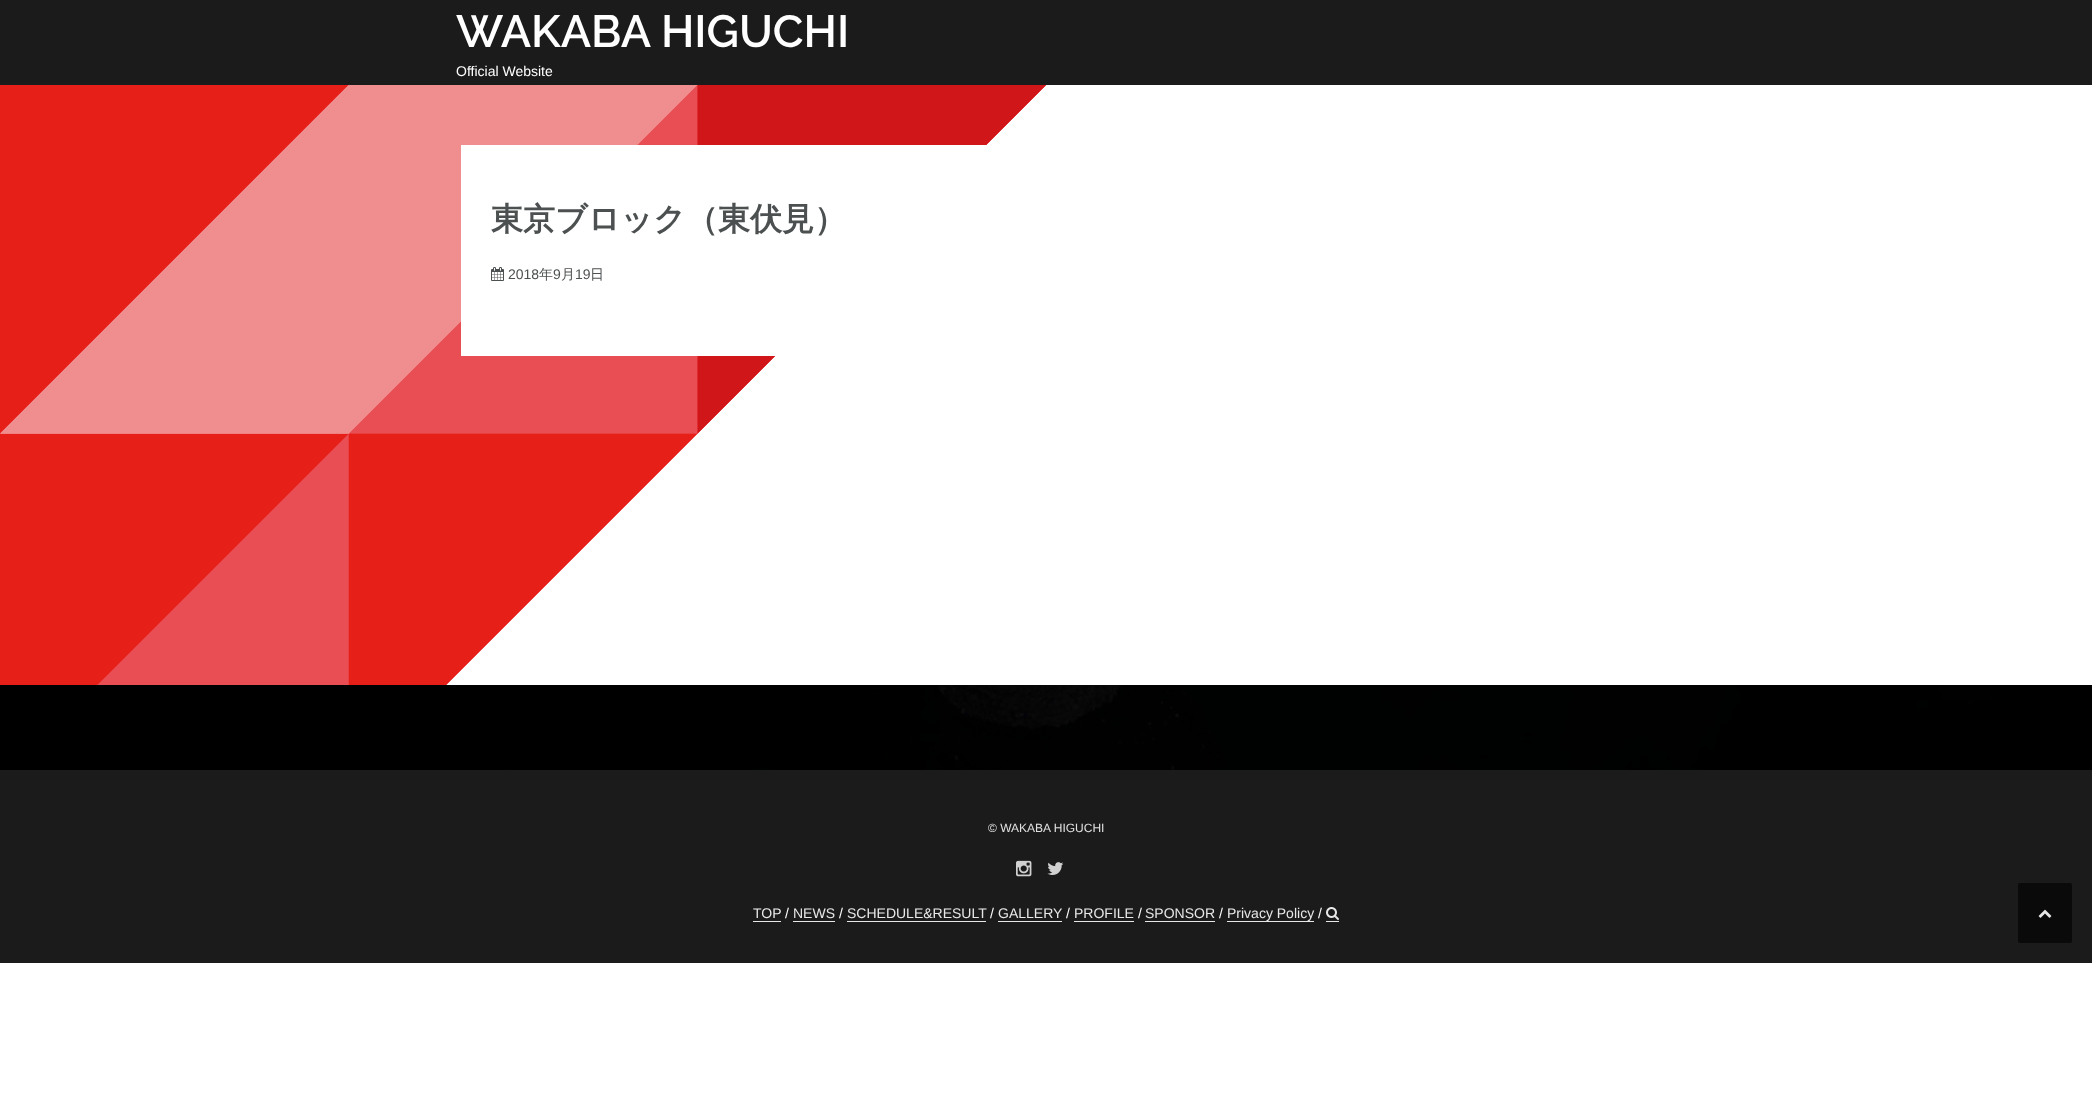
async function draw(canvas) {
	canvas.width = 2092;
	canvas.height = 1115;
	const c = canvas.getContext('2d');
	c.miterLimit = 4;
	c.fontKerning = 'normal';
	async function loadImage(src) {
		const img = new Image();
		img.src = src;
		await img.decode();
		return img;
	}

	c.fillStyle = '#fff';
	c.fillRect(0, 0, 2092, 1115);
	c.fillStyle = '#1b1b1b';
	c.fillRect(0, 0, 2092, 85);
	c.font = '600 45px Raleway';
	c.fillStyle = '#fff';
	c.fillText('WAKABA HIGUCHI', 456, 47);
	c.font = '14px Liberation Sans';
	c.fillText('Official Website', 456, 76);
	c.drawImage(await loadImage('img1.png'), 0, 85, 1046, 600);
	c.fillRect(461, 145, 525, 211);
	c.font = 'bold 32px WenQuanYi Zen Hei';
	c.fillStyle = '#4d5051';
	c.fillText('東京ブロック（東伏見）', 491, 230);
	c.drawImage(await loadImage('img2.png'), 491, 267, 13, 14);
	c.font = '14px Liberation Sans';
	c.fillText('2018', 508, 279);
	c.font = '500 14px WenQuanYi Zen Hei';
	c.fillText('年', 539, 279);
	c.font = '14px Liberation Sans';
	c.fillText('9', 553, 279);
	c.font = '500 14px WenQuanYi Zen Hei';
	c.fillText('月', 561, 279);
	c.font = '14px Liberation Sans';
	c.fillText('19', 575, 279);
	c.font = '500 14px WenQuanYi Zen Hei';
	c.fillText('日', 590, 279);
	c.fillStyle = '#1b1b1b';
	c.fillRect(0, 770, 2092, 193);
	c.font = '12px Liberation Sans';
	c.fillStyle = '#e1e1e1';
	c.fillText('© WAKABA HIGUCHI', 988, 832);
	c.drawImage(await loadImage('img3.png'), 1016, 860, 16, 17);
	c.drawImage(await loadImage('img4.png'), 1047, 862, 17, 13);
	c.font = '14px Liberation Sans';
	c.fillStyle = '#e8e8e8';
	c.fillText('TOP', 753, 918);
	c.fillRect(753, 921, 28, 1);
	c.fillStyle = '#fff';
	c.fillText('/', 785, 918);
	c.fillStyle = '#e8e8e8';
	c.fillText('NEWS', 793, 918);
	c.fillRect(793, 921, 42, 1);
	c.fillStyle = '#fff';
	c.fillText('/', 839, 918);
	c.fillStyle = '#e8e8e8';
	c.fillText('SCHEDULE&RESULT', 847, 918);
	c.fillRect(847, 921, 139, 1);
	c.fillStyle = '#fff';
	c.fillText('/', 990, 918);
	c.fillStyle = '#e8e8e8';
	c.fillText('GALLERY', 998, 918);
	c.fillRect(998, 921, 64, 1);
	c.fillStyle = '#fff';
	c.fillText('/', 1066, 918);
	c.fillStyle = '#e8e8e8';
	c.fillText('PROFILE', 1074, 918);
	c.fillRect(1074, 921, 60, 1);
	c.fillStyle = '#fff';
	c.fillText('/', 1138, 918);
	c.fillStyle = '#e8e8e8';
	c.fillText('SPONSOR', 1145, 918);
	c.fillRect(1145, 921, 70, 1);
	c.fillStyle = '#fff';
	c.fillText('/', 1219, 918);
	c.fillStyle = '#e8e8e8';
	c.fillText('Privacy Policy', 1227, 918);
	c.fillRect(1227, 921, 87, 1);
	c.fillStyle = '#fff';
	c.fillText('/', 1318, 918);
	c.fillStyle = '#e8e8e8';
	c.fillRect(1326, 921, 13, 1);
	c.drawImage(await loadImage('img5.png'), 1326, 907, 13, 13);
	c.fillStyle = '#0a0a0a';
	c.beginPath();
	c.roundRect(2018, 883, 54, 60, 2);
	c.fill();
	c.drawImage(await loadImage('img6.png'), 2038, 909, 14, 9);
	c.drawImage(await loadImage('img7.png'), 0, 685, 2092, 85);
}

draw(document.querySelector('canvas'));
